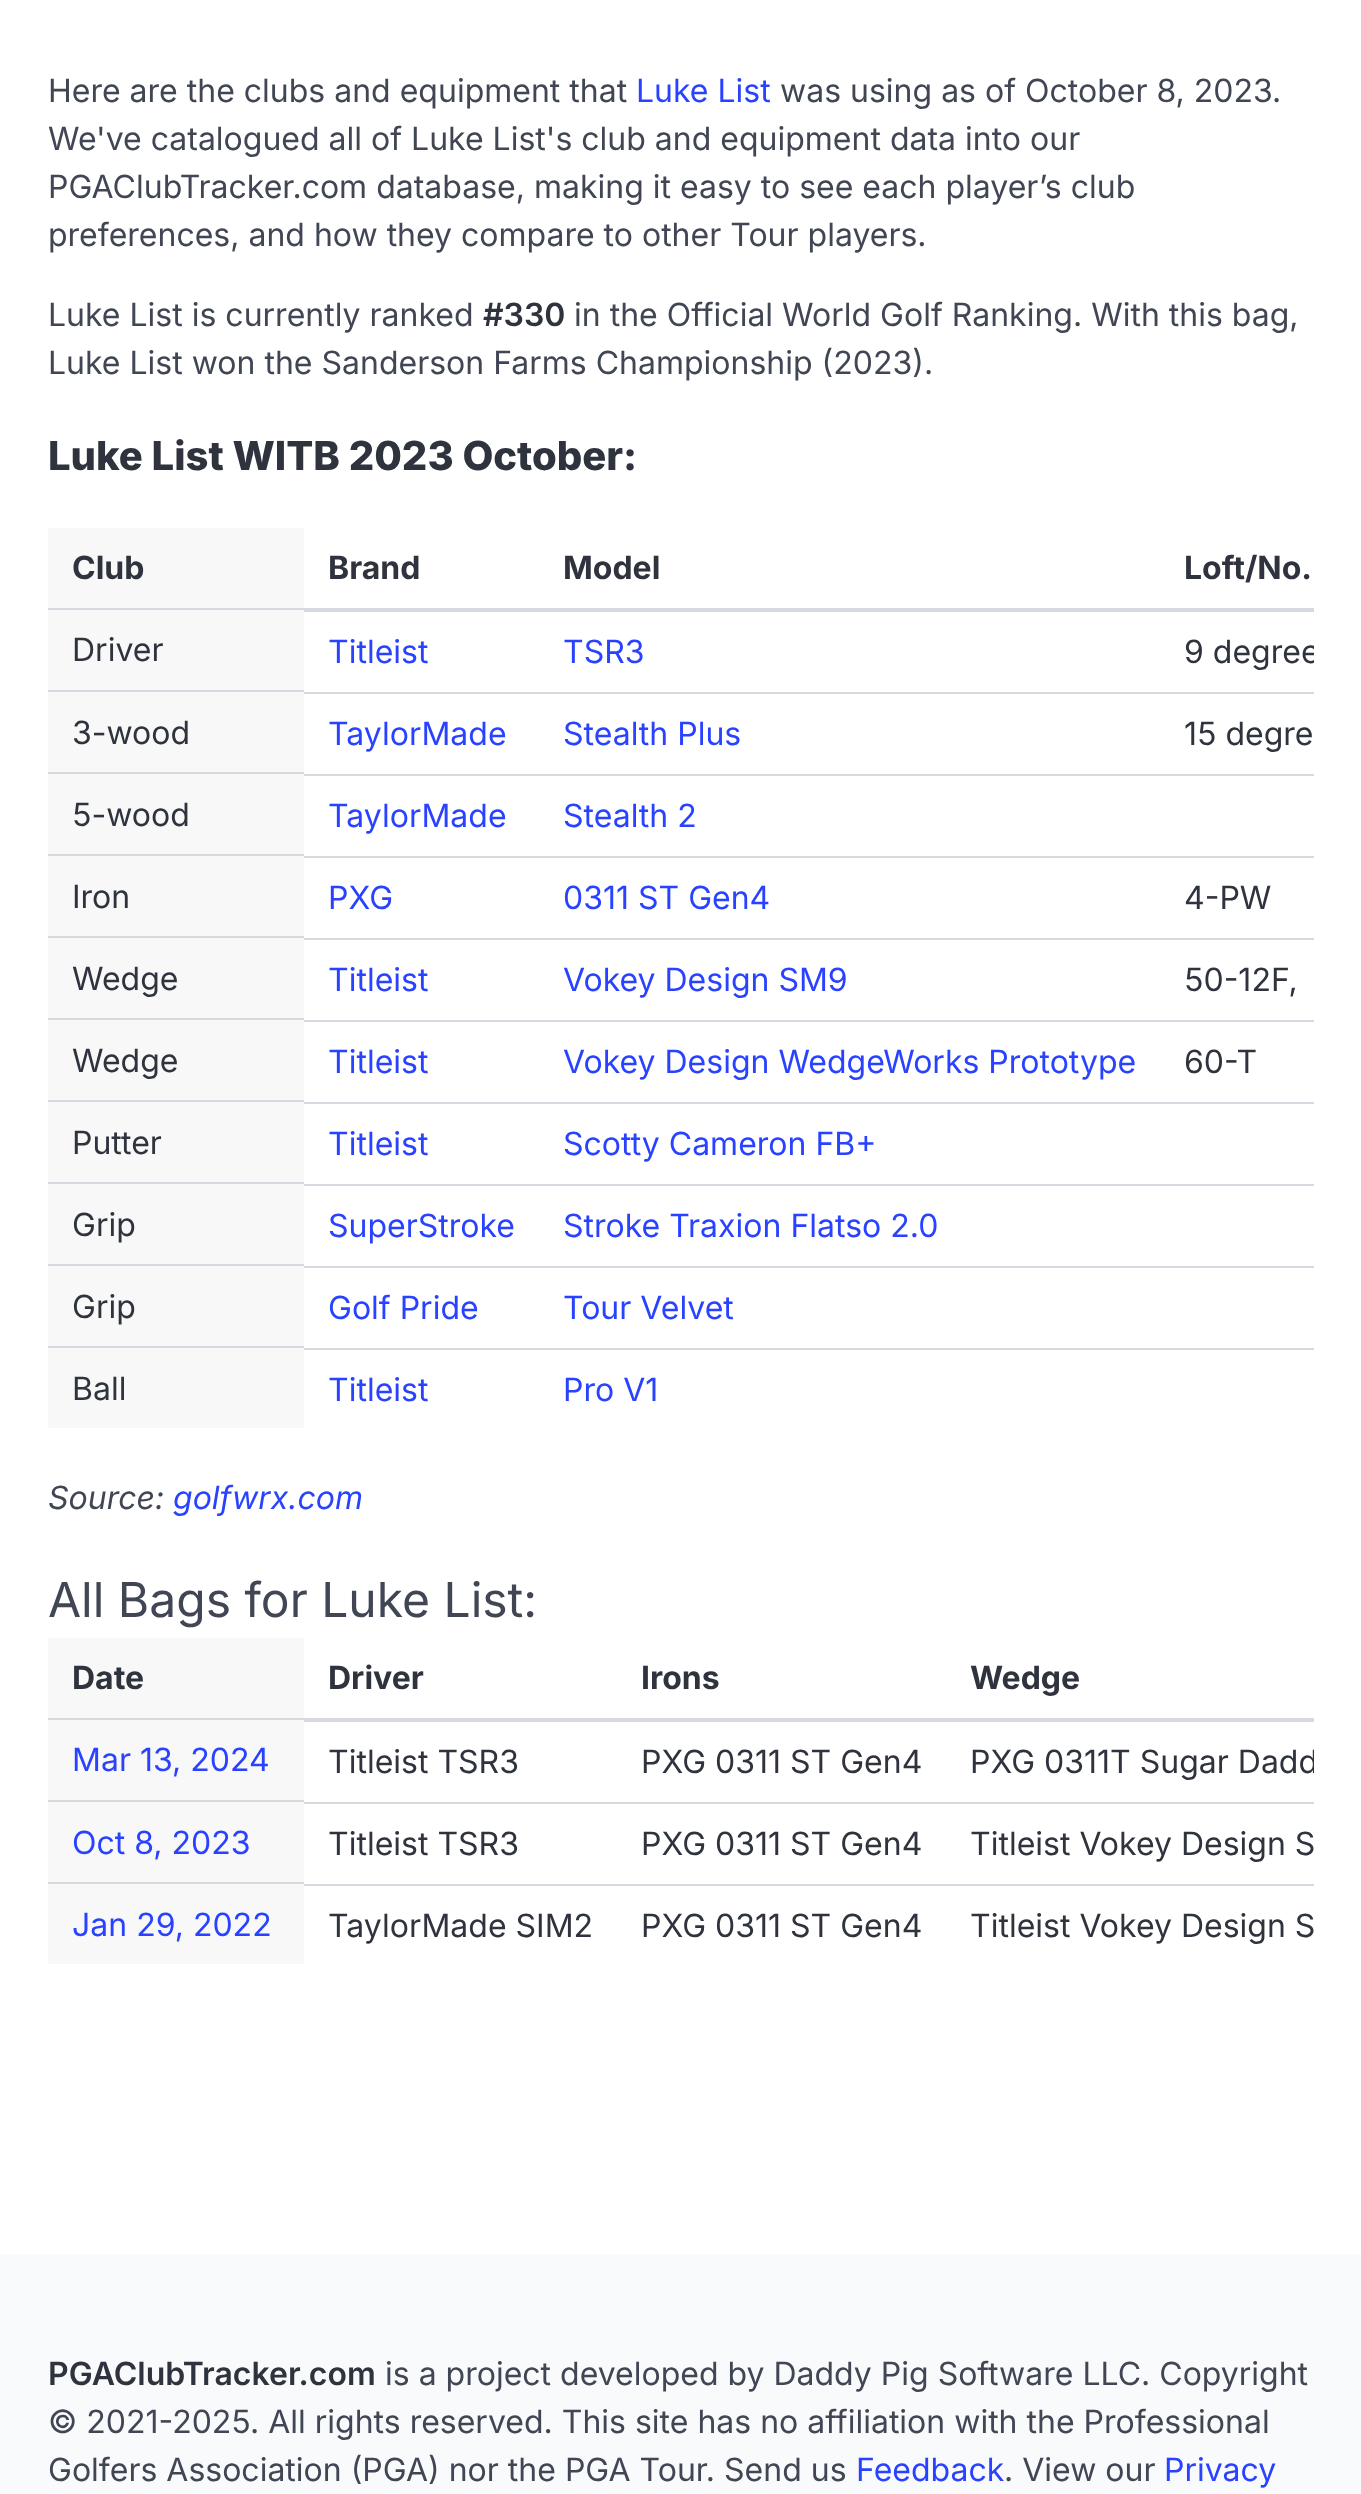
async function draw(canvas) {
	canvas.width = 1361;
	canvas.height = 2494;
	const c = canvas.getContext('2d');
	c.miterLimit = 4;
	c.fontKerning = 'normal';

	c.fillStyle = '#fff';
	c.fillRect(0, 0, 1361, 2494);
	c.font = '32px Inter';
	c.fillStyle = '#404654';
	c.fillText('Here are the clubs and equipment that', 48, 102);
	c.fillStyle = '#2942ff';
	c.fillText('Luke List', 636, 102);
	c.fillStyle = '#404654';
	for (const [text, x, y] of [
		['was using as of October 8, 2023.', 780, 102],
		['We\'ve catalogued all of Luke List\'s club and equipment data into our', 48, 150],
		['PGAClubTracker.com database, making it easy to see each player’s club', 48, 198],
		['preferences, and how they compare to other Tour players.', 48, 246],
		['Luke List is currently ranked', 48, 326],
	]) {
		c.fillText(text, x, y);
	}
	c.font = '600 32px Inter';
	c.fillStyle = '#2e333d';
	c.fillText('#330', 483, 326);
	c.font = '32px Inter';
	c.fillStyle = '#404654';
	c.fillText('in the Official World Golf Ranking. With this bag,', 574, 326);
	c.fillText('Luke List won the Sanderson Farms Championship (2023).', 48, 374);
	c.font = '800 40px Inter';
	c.fillStyle = '#2e333d';
	c.fillText('Luke List WITB 2023 October:', 48, 470);
	for (const [x, y, w, h, color] of [
		[48, 528, 256, 80, '#f8f8f8'],
		[302, 608, 1012, 4, '#d6d9e0'],
		[48, 608, 256, 2, '#d6d9e0'],
	]) {
		c.fillStyle = color;
		c.fillRect(x, y, w, h);
	}
	c.font = 'bold 32px Inter';
	c.fillStyle = '#2e333d';
	for (const [text, x, y] of [
		['Club', 72, 579],
		['Brand', 328, 579],
		['Model', 563, 579],
		['Loft/No.', 1184, 579],
	]) {
		c.fillText(text, x, y);
	}
	c.fillStyle = '#f8f8f8';
	c.fillRect(48, 610, 256, 80);
	c.fillStyle = '#d6d9e0';
	c.fillRect(48, 690, 256, 2);
	c.font = '32px Inter';
	c.fillStyle = '#2e333d';
	c.fillText('Driver', 72, 661);
	c.fillStyle = '#2942ff';
	c.fillText('Titleist', 328, 663);
	c.fillText('TSR3', 563, 663);
	c.fillStyle = '#d6d9e0';
	c.fillRect(304, 692, 1010, 2);
	c.save();
	c.beginPath();
	c.rect(48, 528, 1266, 990);
	c.clip();
	c.fillStyle = '#2e333d';
	c.fillText('9 degree', 1184, 663);
	c.restore();
	c.fillStyle = '#f8f8f8';
	c.fillRect(48, 692, 256, 80);
	c.fillStyle = '#d6d9e0';
	c.fillRect(48, 772, 256, 2);
	c.fillStyle = '#2e333d';
	c.fillText('3-wood', 72, 744);
	c.fillStyle = '#2942ff';
	c.fillText('TaylorMade', 328, 745);
	c.fillText('Stealth Plus', 563, 745);
	c.fillStyle = '#d6d9e0';
	c.fillRect(304, 774, 1010, 2);
	c.fillStyle = '#2e333d';
	c.fillText('15 degre', 1184, 745);
	c.fillStyle = '#f8f8f8';
	c.fillRect(48, 774, 256, 80);
	c.fillStyle = '#d6d9e0';
	c.fillRect(48, 854, 256, 2);
	c.fillStyle = '#2e333d';
	c.fillText('5-wood', 72, 826);
	c.fillStyle = '#2942ff';
	c.fillText('TaylorMade', 328, 827);
	c.fillText('Stealth 2', 563, 827);
	for (const [x, y, w, h, color] of [
		[304, 856, 1010, 2, '#d6d9e0'],
		[48, 856, 256, 80, '#f8f8f8'],
		[48, 936, 256, 2, '#d6d9e0'],
	]) {
		c.fillStyle = color;
		c.fillRect(x, y, w, h);
	}
	c.fillStyle = '#2e333d';
	c.fillText('Iron', 72, 908);
	c.fillStyle = '#2942ff';
	c.fillText('PXG', 328, 909);
	c.fillText('0311 ST Gen4', 563, 909);
	c.fillStyle = '#d6d9e0';
	c.fillRect(304, 938, 1010, 2);
	c.fillStyle = '#2e333d';
	c.fillText('4-PW', 1184, 909);
	c.fillStyle = '#f8f8f8';
	c.fillRect(48, 938, 256, 80);
	c.fillStyle = '#d6d9e0';
	c.fillRect(48, 1018, 256, 2);
	c.fillStyle = '#2e333d';
	c.fillText('Wedge', 72, 990);
	c.fillStyle = '#2942ff';
	c.fillText('Titleist', 328, 991);
	c.fillText('Vokey Design SM9', 563, 991);
	c.fillStyle = '#d6d9e0';
	c.fillRect(304, 1020, 1010, 2);
	c.fillStyle = '#2e333d';
	c.fillText('50-12F,', 1184, 991);
	c.fillStyle = '#f8f8f8';
	c.fillRect(48, 1020, 256, 80);
	c.fillStyle = '#d6d9e0';
	c.fillRect(48, 1100, 256, 2);
	c.fillStyle = '#2e333d';
	c.fillText('Wedge', 72, 1072);
	c.fillStyle = '#2942ff';
	c.fillText('Titleist', 328, 1073);
	c.fillText('Vokey Design WedgeWorks Prototype', 563, 1073);
	c.fillStyle = '#d6d9e0';
	c.fillRect(304, 1102, 1010, 2);
	c.fillStyle = '#2e333d';
	c.fillText('60-T', 1184, 1073);
	c.fillStyle = '#f8f8f8';
	c.fillRect(48, 1102, 256, 80);
	c.fillStyle = '#d6d9e0';
	c.fillRect(48, 1182, 256, 2);
	c.fillStyle = '#2e333d';
	c.fillText('Putter', 72, 1154);
	c.fillStyle = '#2942ff';
	c.fillText('Titleist', 328, 1155);
	c.fillText('Scotty Cameron FB+', 563, 1155);
	for (const [x, y, w, h, color] of [
		[304, 1184, 1010, 2, '#d6d9e0'],
		[48, 1184, 256, 80, '#f8f8f8'],
		[48, 1264, 256, 2, '#d6d9e0'],
	]) {
		c.fillStyle = color;
		c.fillRect(x, y, w, h);
	}
	c.fillStyle = '#2e333d';
	c.fillText('Grip', 72, 1236);
	c.fillStyle = '#2942ff';
	c.fillText('SuperStroke', 328, 1237);
	c.fillText('Stroke Traxion Flatso 2.0', 563, 1237);
	for (const [x, y, w, h, color] of [
		[304, 1266, 1010, 2, '#d6d9e0'],
		[48, 1266, 256, 80, '#f8f8f8'],
		[48, 1346, 256, 2, '#d6d9e0'],
	]) {
		c.fillStyle = color;
		c.fillRect(x, y, w, h);
	}
	c.fillStyle = '#2e333d';
	c.fillText('Grip', 72, 1318);
	c.fillStyle = '#2942ff';
	c.fillText('Golf Pride', 328, 1319);
	c.fillText('Tour Velvet', 563, 1319);
	c.fillStyle = '#d6d9e0';
	c.fillRect(304, 1348, 1010, 2);
	c.fillStyle = '#f8f8f8';
	c.fillRect(48, 1348, 256, 80);
	c.fillStyle = '#2e333d';
	c.fillText('Ball', 72, 1400);
	c.fillStyle = '#2942ff';
	c.fillText('Titleist', 328, 1401);
	c.fillText('Pro V1', 563, 1401);
	c.font = 'italic 32px Inter';
	c.fillStyle = '#404654';
	c.fillText('Source:', 48, 1509);
	c.fillStyle = '#2942ff';
	c.fillText('golfwrx.com', 173, 1509);
	c.font = '48px Inter';
	c.fillStyle = '#404654';
	c.fillText('All Bags for Luke List:', 48, 1617);
	for (const [x, y, w, h, color] of [
		[48, 1638, 256, 80, '#f8f8f8'],
		[302, 1718, 1012, 4, '#d6d9e0'],
		[48, 1718, 256, 2, '#d6d9e0'],
	]) {
		c.fillStyle = color;
		c.fillRect(x, y, w, h);
	}
	c.font = 'bold 32px Inter';
	c.fillStyle = '#2e333d';
	for (const [text, x, y] of [
		['Date', 72, 1689],
		['Driver', 328, 1689],
		['Irons', 641, 1689],
		['Wedge', 970, 1689],
	]) {
		c.fillText(text, x, y);
	}
	c.fillStyle = '#f8f8f8';
	c.fillRect(48, 1720, 256, 80);
	c.fillStyle = '#d6d9e0';
	c.fillRect(48, 1800, 256, 2);
	c.font = '32px Inter';
	c.fillStyle = '#2942ff';
	c.fillText('Mar 13, 2024', 72, 1771);
	c.fillStyle = '#2e333d';
	c.fillText('Titleist TSR3', 328, 1773);
	c.fillText('PXG 0311 ST Gen4', 641, 1773);
	c.fillStyle = '#d6d9e0';
	c.fillRect(304, 1802, 1010, 2);
	c.save();
	c.beginPath();
	c.rect(48, 1638, 1266, 328);
	c.clip();
	c.fillStyle = '#2e333d';
	c.fillText('PXG 0311T Sugar Dadd', 970, 1773);
	c.restore();
	c.fillStyle = '#f8f8f8';
	c.fillRect(48, 1802, 256, 80);
	c.fillStyle = '#d6d9e0';
	c.fillRect(48, 1882, 256, 2);
	c.fillStyle = '#2942ff';
	c.fillText('Oct 8, 2023', 72, 1854);
	c.fillStyle = '#2e333d';
	c.fillText('Titleist TSR3', 328, 1855);
	c.fillText('PXG 0311 ST Gen4', 641, 1855);
	c.fillStyle = '#d6d9e0';
	c.fillRect(304, 1884, 1010, 2);
	c.fillStyle = '#2e333d';
	c.fillText('Titleist Vokey Design S', 970, 1855);
	c.fillStyle = '#f8f8f8';
	c.fillRect(48, 1884, 256, 80);
	c.fillStyle = '#2942ff';
	c.fillText('Jan 29, 2022', 72, 1936);
	c.fillStyle = '#2e333d';
	for (const [text, x, y] of [
		['TaylorMade SIM2', 328, 1937],
		['PXG 0311 ST Gen4', 641, 1937],
		['Titleist Vokey Design S', 970, 1937],
	]) {
		c.fillText(text, x, y);
	}
	c.fillStyle = '#f9fafb';
	c.fillRect(0, 2254, 1361, 240);
	c.font = '600 32px Inter';
	c.fillStyle = '#2e333d';
	c.fillText('PGAClubTracker.com', 48, 2385);
	c.font = '32px Inter';
	c.fillStyle = '#404654';
	for (const [text, x, y] of [
		['is a project developed by Daddy Pig Software LLC. Copyright', 385, 2385],
		['© 2021-2025. All rights reserved. This site has no affiliation with the Professional', 48, 2433],
		['Golfers Association (PGA) nor the PGA Tour. Send us', 48, 2481],
	]) {
		c.fillText(text, x, y);
	}
	c.fillStyle = '#2942ff';
	c.fillText('Feedback', 856, 2481);
	c.fillStyle = '#404654';
	c.fillText('. View our', 1004, 2481);
	c.fillStyle = '#2942ff';
	c.fillText('Privacy', 1164, 2481);
}

draw(document.querySelector('canvas'));
